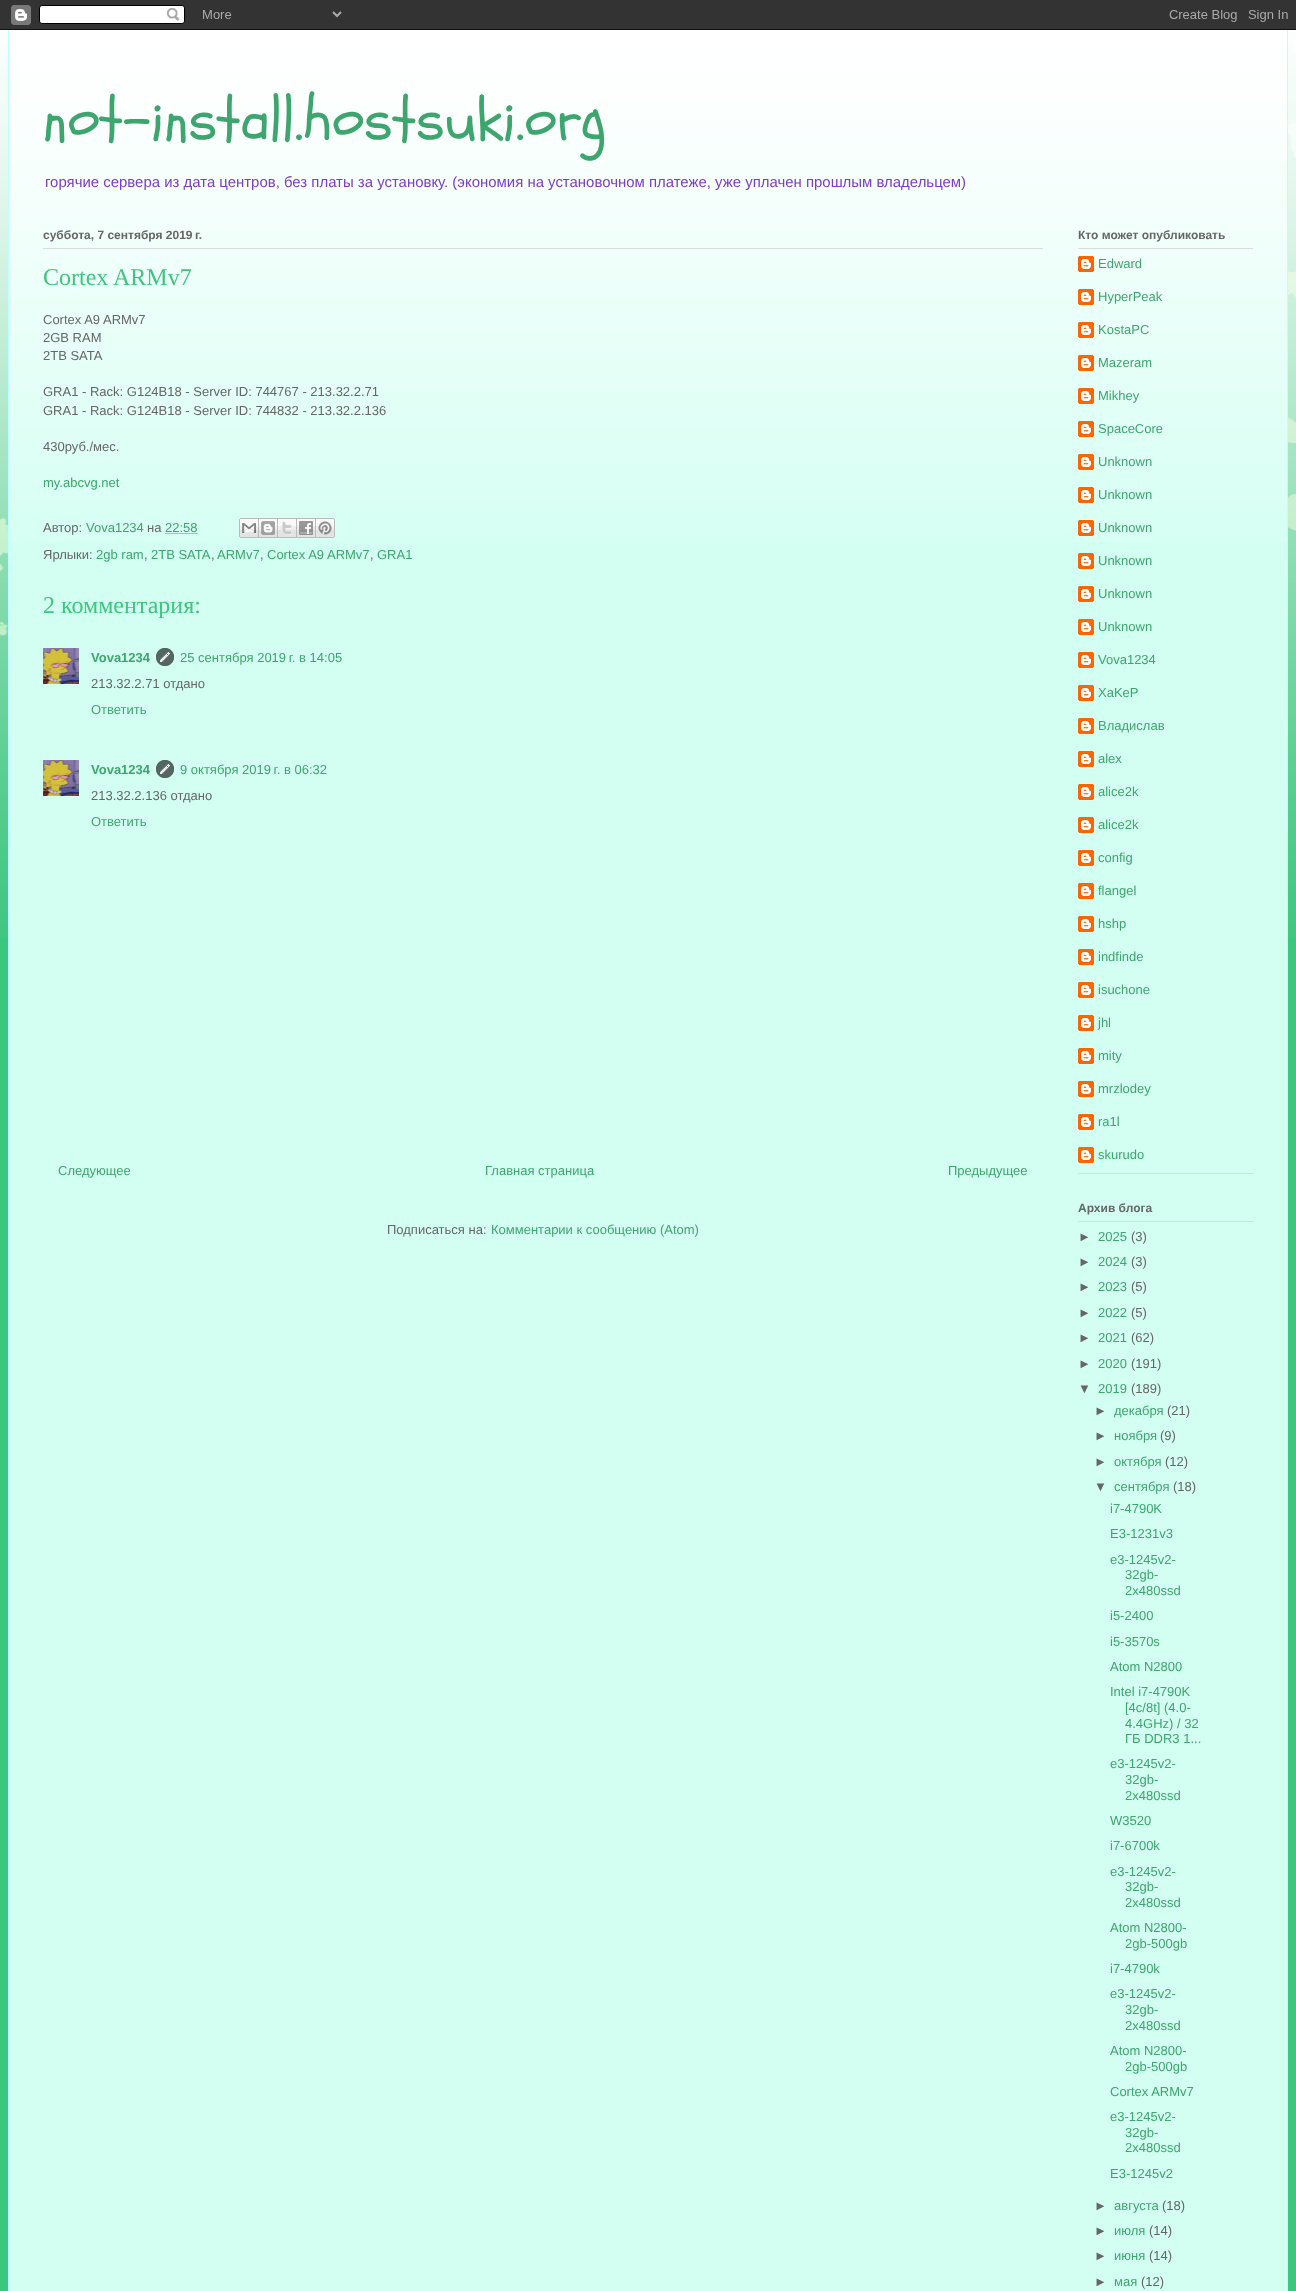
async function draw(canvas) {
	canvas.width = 1296;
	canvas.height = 2291;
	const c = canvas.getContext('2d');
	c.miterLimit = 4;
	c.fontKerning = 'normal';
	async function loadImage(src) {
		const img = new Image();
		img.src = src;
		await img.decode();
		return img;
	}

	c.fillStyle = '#3dc67e';
	c.fillRect(0, 0, 1296, 2291);
	c.drawImage(await loadImage('img1.png'), 0, 0, 1296, 30);
	c.drawImage(await loadImage('img2.png'), 0, 30, 1296, 907);
	c.fillStyle = '#d3fff2';
	c.fillRect(9, 37, 1278, 2254);
	c.drawImage(await loadImage('img3.png'), 9, 30, 1278, 512);
	c.fillStyle = '#bff';
	c.fillRect(1287, 30, 1, 2261);
	c.fillRect(8, 30, 1, 2261);
	c.font = '60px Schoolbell';
	c.fillStyle = '#3da56e';
	c.fillText('not-install.hostsuki.org', 43, 139);
	c.font = '14.95px Liberation Sans';
	c.fillStyle = '#7e3dc6';
	c.fillText('горячие сервера из дата центров, без платы за установку. (экономия на установочном платеже, уже уплачен прошлым владельцем)', 45, 187);
	c.fillStyle = '#dbdbdb';
	c.fillRect(43, 248, 1000, 1);
	c.font = 'bold 12px Liberation Sans';
	c.fillStyle = '#666';
	c.fillText('суббота, 7 сентября 2019 г.', 43, 239);
	c.font = '24px Liberation Serif';
	c.fillStyle = '#3dc67e';
	c.fillText('Cortex ARMv7', 43, 285);
	c.font = '13px Liberation Sans';
	c.fillStyle = '#666';
	for (const [text, x, y] of [
		['Cortex A9 ARMv7', 43, 324],
		['2GB RAM', 43, 342],
		['2TB SATA', 43, 360],
		['GRA1 - Rack: G124B18 - Server ID: 744767 - 213.32.2.71', 43, 396],
		['GRA1 - Rack: G124B18 - Server ID: 744832 - 213.32.2.136', 43, 415],
		['430руб./мес.', 43, 451],
	]) {
		c.fillText(text, x, y);
	}
	c.fillStyle = '#3da56e';
	c.fillText('my.abcvg.net', 43, 487);
	c.fillStyle = '#666';
	c.fillText('Автор:', 43, 532);
	c.fillStyle = '#3da56e';
	c.fillText('Vova1234', 86, 532);
	c.fillStyle = '#666';
	c.fillText('на', 147, 532);
	c.beginPath();
	c.moveTo(165.5, 533.5);
	c.lineTo(198, 533.5);
	c.strokeStyle = '#3da56e';
	c.setLineDash([1, 1]);
	c.stroke();
	c.fillStyle = '#3da56e';
	c.fillText('22:58', 165, 532);
	c.drawImage(await loadImage('img4.png'), 239, 518, 20, 20);
	c.drawImage(await loadImage('img5.png'), 259, 518, 19, 20);
	c.drawImage(await loadImage('img6.png'), 278, 518, 19, 20);
	c.drawImage(await loadImage('img7.png'), 297, 518, 19, 20);
	c.drawImage(await loadImage('img8.png'), 316, 518, 19, 20);
	c.fillStyle = '#666';
	c.fillText('Ярлыки:', 43, 559);
	c.fillStyle = '#3da56e';
	c.fillText('2gb ram', 96, 559);
	c.fillStyle = '#666';
	c.fillText(',', 144, 559);
	c.fillStyle = '#3da56e';
	c.fillText('2TB SATA', 151, 559);
	c.fillStyle = '#666';
	c.fillText(',', 211, 559);
	c.fillStyle = '#3da56e';
	c.fillText('ARMv7', 217, 559);
	c.fillStyle = '#666';
	c.fillText(',', 260, 559);
	c.fillStyle = '#3da56e';
	c.fillText('Cortex A9 ARMv7', 267, 559);
	c.fillStyle = '#666';
	c.fillText(',', 370, 559);
	c.fillStyle = '#3da56e';
	c.fillText('GRA1', 377, 559);
	c.font = '24px Liberation Serif';
	c.fillStyle = '#3dc67e';
	c.fillText('2 комментария:', 43, 613);
	c.drawImage(await loadImage('img9.png'), 43, 648, 36, 36);
	c.font = 'bold 13px Liberation Sans';
	c.fillStyle = '#3da56e';
	c.fillText('Vova1234', 91, 662);
	c.drawImage(await loadImage('img10.png'), 156, 648, 18, 18);
	c.font = '13px Liberation Sans';
	c.fillText('25 сентября 2019 г. в 14:05', 180, 662);
	c.fillStyle = '#666';
	c.fillText('213.32.2.71 отдано', 91, 688);
	c.fillStyle = '#3da56e';
	c.fillText('Ответить', 91, 714);
	c.drawImage(await loadImage('img9.png'), 43, 760, 36, 36);
	c.font = 'bold 13px Liberation Sans';
	c.fillText('Vova1234', 91, 774);
	c.drawImage(await loadImage('img10.png'), 156, 760, 18, 18);
	c.font = '13px Liberation Sans';
	c.fillText('9 октября 2019 г. в 06:32', 180, 774);
	c.fillStyle = '#666';
	c.fillText('213.32.2.136 отдано', 91, 800);
	c.fillStyle = '#3da56e';
	for (const [text, x, y] of [
		['Ответить', 91, 826],
		['Следующее', 58, 1175],
		['Главная страница', 485, 1175],
		['Предыдущее', 948, 1175],
	]) {
		c.fillText(text, x, y);
	}
	c.fillStyle = '#666';
	c.fillText('Подписаться на:', 387, 1234);
	c.fillStyle = '#3da56e';
	c.fillText('Комментарии к сообщению (Atom)', 491, 1234);
	c.fillStyle = '#dbdbdb';
	c.fillRect(1078, 1173, 175, 1);
	c.fillRect(1078, 248, 175, 1);
	c.font = 'bold 12px Liberation Sans';
	c.fillStyle = '#666';
	c.fillText('Кто может опубликовать', 1078, 239);
	c.drawImage(await loadImage('img11.png'), 1078, 256, 16, 16);
	c.font = '13px Liberation Sans';
	c.fillStyle = '#3da56e';
	c.fillText('Edward', 1098, 268);
	c.drawImage(await loadImage('img12.png'), 1078, 289, 16, 16);
	c.fillText('HyperPeak', 1098, 301);
	c.drawImage(await loadImage('img13.png'), 1078, 322, 16, 16);
	c.fillText('KostaPC', 1098, 334);
	c.drawImage(await loadImage('img14.png'), 1078, 355, 16, 16);
	c.fillText('Mazeram', 1098, 367);
	c.drawImage(await loadImage('img15.png'), 1078, 388, 16, 16);
	c.fillText('Mikhey', 1098, 400);
	c.drawImage(await loadImage('img16.png'), 1078, 421, 16, 16);
	c.fillText('SpaceCore', 1098, 433);
	c.drawImage(await loadImage('img17.png'), 1078, 454, 16, 16);
	c.fillText('Unknown', 1098, 466);
	c.drawImage(await loadImage('img18.png'), 1078, 487, 16, 16);
	c.fillText('Unknown', 1098, 499);
	c.drawImage(await loadImage('img19.png'), 1078, 520, 16, 16);
	c.fillText('Unknown', 1098, 532);
	c.drawImage(await loadImage('img20.png'), 1078, 553, 16, 16);
	c.fillText('Unknown', 1098, 565);
	c.drawImage(await loadImage('img20.png'), 1078, 586, 16, 16);
	c.fillText('Unknown', 1098, 598);
	c.drawImage(await loadImage('img20.png'), 1078, 619, 16, 16);
	c.fillText('Unknown', 1098, 631);
	c.drawImage(await loadImage('img20.png'), 1078, 652, 16, 16);
	c.fillText('Vova1234', 1098, 664);
	c.drawImage(await loadImage('img20.png'), 1078, 685, 16, 16);
	c.fillText('XaKeP', 1098, 697);
	c.drawImage(await loadImage('img20.png'), 1078, 718, 16, 16);
	c.fillText('Владислав', 1098, 730);
	c.drawImage(await loadImage('img20.png'), 1078, 751, 16, 16);
	c.fillText('alex', 1098, 763);
	c.drawImage(await loadImage('img20.png'), 1078, 784, 16, 16);
	c.fillText('alice2k', 1098, 796);
	c.drawImage(await loadImage('img20.png'), 1078, 817, 16, 16);
	c.fillText('alice2k', 1098, 829);
	c.drawImage(await loadImage('img20.png'), 1078, 850, 16, 16);
	c.fillText('config', 1098, 862);
	c.drawImage(await loadImage('img20.png'), 1078, 883, 16, 16);
	c.fillText('flangel', 1098, 895);
	c.drawImage(await loadImage('img20.png'), 1078, 916, 16, 16);
	c.fillText('hshp', 1098, 928);
	c.drawImage(await loadImage('img20.png'), 1078, 949, 16, 16);
	c.fillText('indfinde', 1098, 961);
	c.drawImage(await loadImage('img20.png'), 1078, 982, 16, 16);
	c.fillText('isuchone', 1098, 994);
	c.drawImage(await loadImage('img20.png'), 1078, 1015, 16, 16);
	c.fillText('jhl', 1098, 1027);
	c.drawImage(await loadImage('img20.png'), 1078, 1048, 16, 16);
	c.fillText('mity', 1098, 1060);
	c.drawImage(await loadImage('img20.png'), 1078, 1081, 16, 16);
	c.fillText('mrzlodey', 1098, 1093);
	c.drawImage(await loadImage('img20.png'), 1078, 1114, 16, 16);
	c.fillText('ra1l', 1098, 1126);
	c.drawImage(await loadImage('img20.png'), 1078, 1147, 16, 16);
	c.fillText('skurudo', 1098, 1159);
	c.fillStyle = '#dbdbdb';
	c.fillRect(1078, 1221, 175, 1);
	c.font = 'bold 12px Liberation Sans';
	c.fillStyle = '#666';
	c.fillText('Архив блога', 1078, 1212);
	c.font = '13px Liberation Sans';
	c.fillText('►', 1078, 1241);
	c.fillStyle = '#3da56e';
	c.fillText('2025', 1098, 1241);
	c.fillStyle = '#666';
	c.fillText('(3)', 1131, 1241);
	c.fillText('►', 1078, 1266);
	c.fillStyle = '#3da56e';
	c.fillText('2024', 1098, 1266);
	c.fillStyle = '#666';
	c.fillText('(3)', 1131, 1266);
	c.fillText('►', 1078, 1291);
	c.fillStyle = '#3da56e';
	c.fillText('2023', 1098, 1291);
	c.fillStyle = '#666';
	c.fillText('(5)', 1131, 1291);
	c.fillText('►', 1078, 1317);
	c.fillStyle = '#3da56e';
	c.fillText('2022', 1098, 1317);
	c.fillStyle = '#666';
	c.fillText('(5)', 1131, 1317);
	c.fillText('►', 1078, 1342);
	c.fillStyle = '#3da56e';
	c.fillText('2021', 1098, 1342);
	c.fillStyle = '#666';
	c.fillText('(62)', 1131, 1342);
	c.fillText('►', 1078, 1368);
	c.fillStyle = '#3da56e';
	c.fillText('2020', 1098, 1368);
	c.fillStyle = '#666';
	c.fillText('(191)', 1131, 1368);
	c.fillText('▼', 1078, 1393);
	c.fillStyle = '#3da56e';
	c.fillText('2019', 1098, 1393);
	c.fillStyle = '#666';
	c.fillText('(189)', 1131, 1393);
	c.fillText('►', 1094, 1415);
	c.fillStyle = '#3da56e';
	c.fillText('декабря', 1114, 1415);
	c.fillStyle = '#666';
	c.fillText('(21)', 1167, 1415);
	c.fillText('►', 1094, 1440);
	c.fillStyle = '#3da56e';
	c.fillText('ноября', 1114, 1440);
	c.fillStyle = '#666';
	c.fillText('(9)', 1160, 1440);
	c.fillText('►', 1094, 1466);
	c.fillStyle = '#3da56e';
	c.fillText('октября', 1114, 1466);
	c.fillStyle = '#666';
	c.fillText('(12)', 1165, 1466);
	c.fillText('▼', 1094, 1491);
	c.fillStyle = '#3da56e';
	c.fillText('сентября', 1114, 1491);
	c.fillStyle = '#666';
	c.fillText('(18)', 1173, 1491);
	c.fillStyle = '#3da56e';
	for (const [text, x, y] of [
		['i7-4790K', 1110, 1513],
		['E3-1231v3', 1110, 1538],
		['e3-1245v2-', 1110, 1564],
		['32gb-', 1125, 1579],
		['2x480ssd', 1125, 1595],
		['i5-2400', 1110, 1620],
		['i5-3570s', 1110, 1646],
		['Atom N2800', 1110, 1671],
		['Intel i7-4790K', 1110, 1696],
		['[4c/8t] (4.0-', 1125, 1712],
		['4.4GHz) / 32', 1125, 1728],
		['ГБ DDR3 1...', 1125, 1743],
		['e3-1245v2-', 1110, 1768],
		['32gb-', 1125, 1784],
		['2x480ssd', 1125, 1800],
		['W3520', 1110, 1825],
		['i7-6700k', 1110, 1850],
		['e3-1245v2-', 1110, 1876],
		['32gb-', 1125, 1891],
		['2x480ssd', 1125, 1907],
		['Atom N2800-', 1110, 1932],
		['2gb-500gb', 1125, 1948],
		['i7-4790k', 1110, 1973],
		['e3-1245v2-', 1110, 1998],
		['32gb-', 1125, 2014],
		['2x480ssd', 1125, 2030],
		['Atom N2800-', 1110, 2055],
		['2gb-500gb', 1125, 2071],
		['Cortex ARMv7', 1110, 2096],
		['e3-1245v2-', 1110, 2121],
		['32gb-', 1125, 2137],
		['2x480ssd', 1125, 2152],
		['E3-1245v2', 1110, 2178],
	]) {
		c.fillText(text, x, y);
	}
	c.fillStyle = '#666';
	c.fillText('►', 1094, 2210);
	c.fillStyle = '#3da56e';
	c.fillText('августа', 1114, 2210);
	c.fillStyle = '#666';
	c.fillText('(18)', 1162, 2210);
	c.fillText('►', 1094, 2235);
	c.fillStyle = '#3da56e';
	c.fillText('июля', 1114, 2235);
	c.fillStyle = '#666';
	c.fillText('(14)', 1149, 2235);
	c.fillText('►', 1094, 2260);
	c.fillStyle = '#3da56e';
	c.fillText('июня', 1114, 2260);
	c.fillStyle = '#666';
	c.fillText('(14)', 1149, 2260);
	c.fillText('►', 1094, 2286);
	c.fillStyle = '#3da56e';
	c.fillText('мая', 1114, 2286);
	c.fillStyle = '#666';
	c.fillText('(12)', 1141, 2286);
}

draw(document.querySelector('canvas'));
